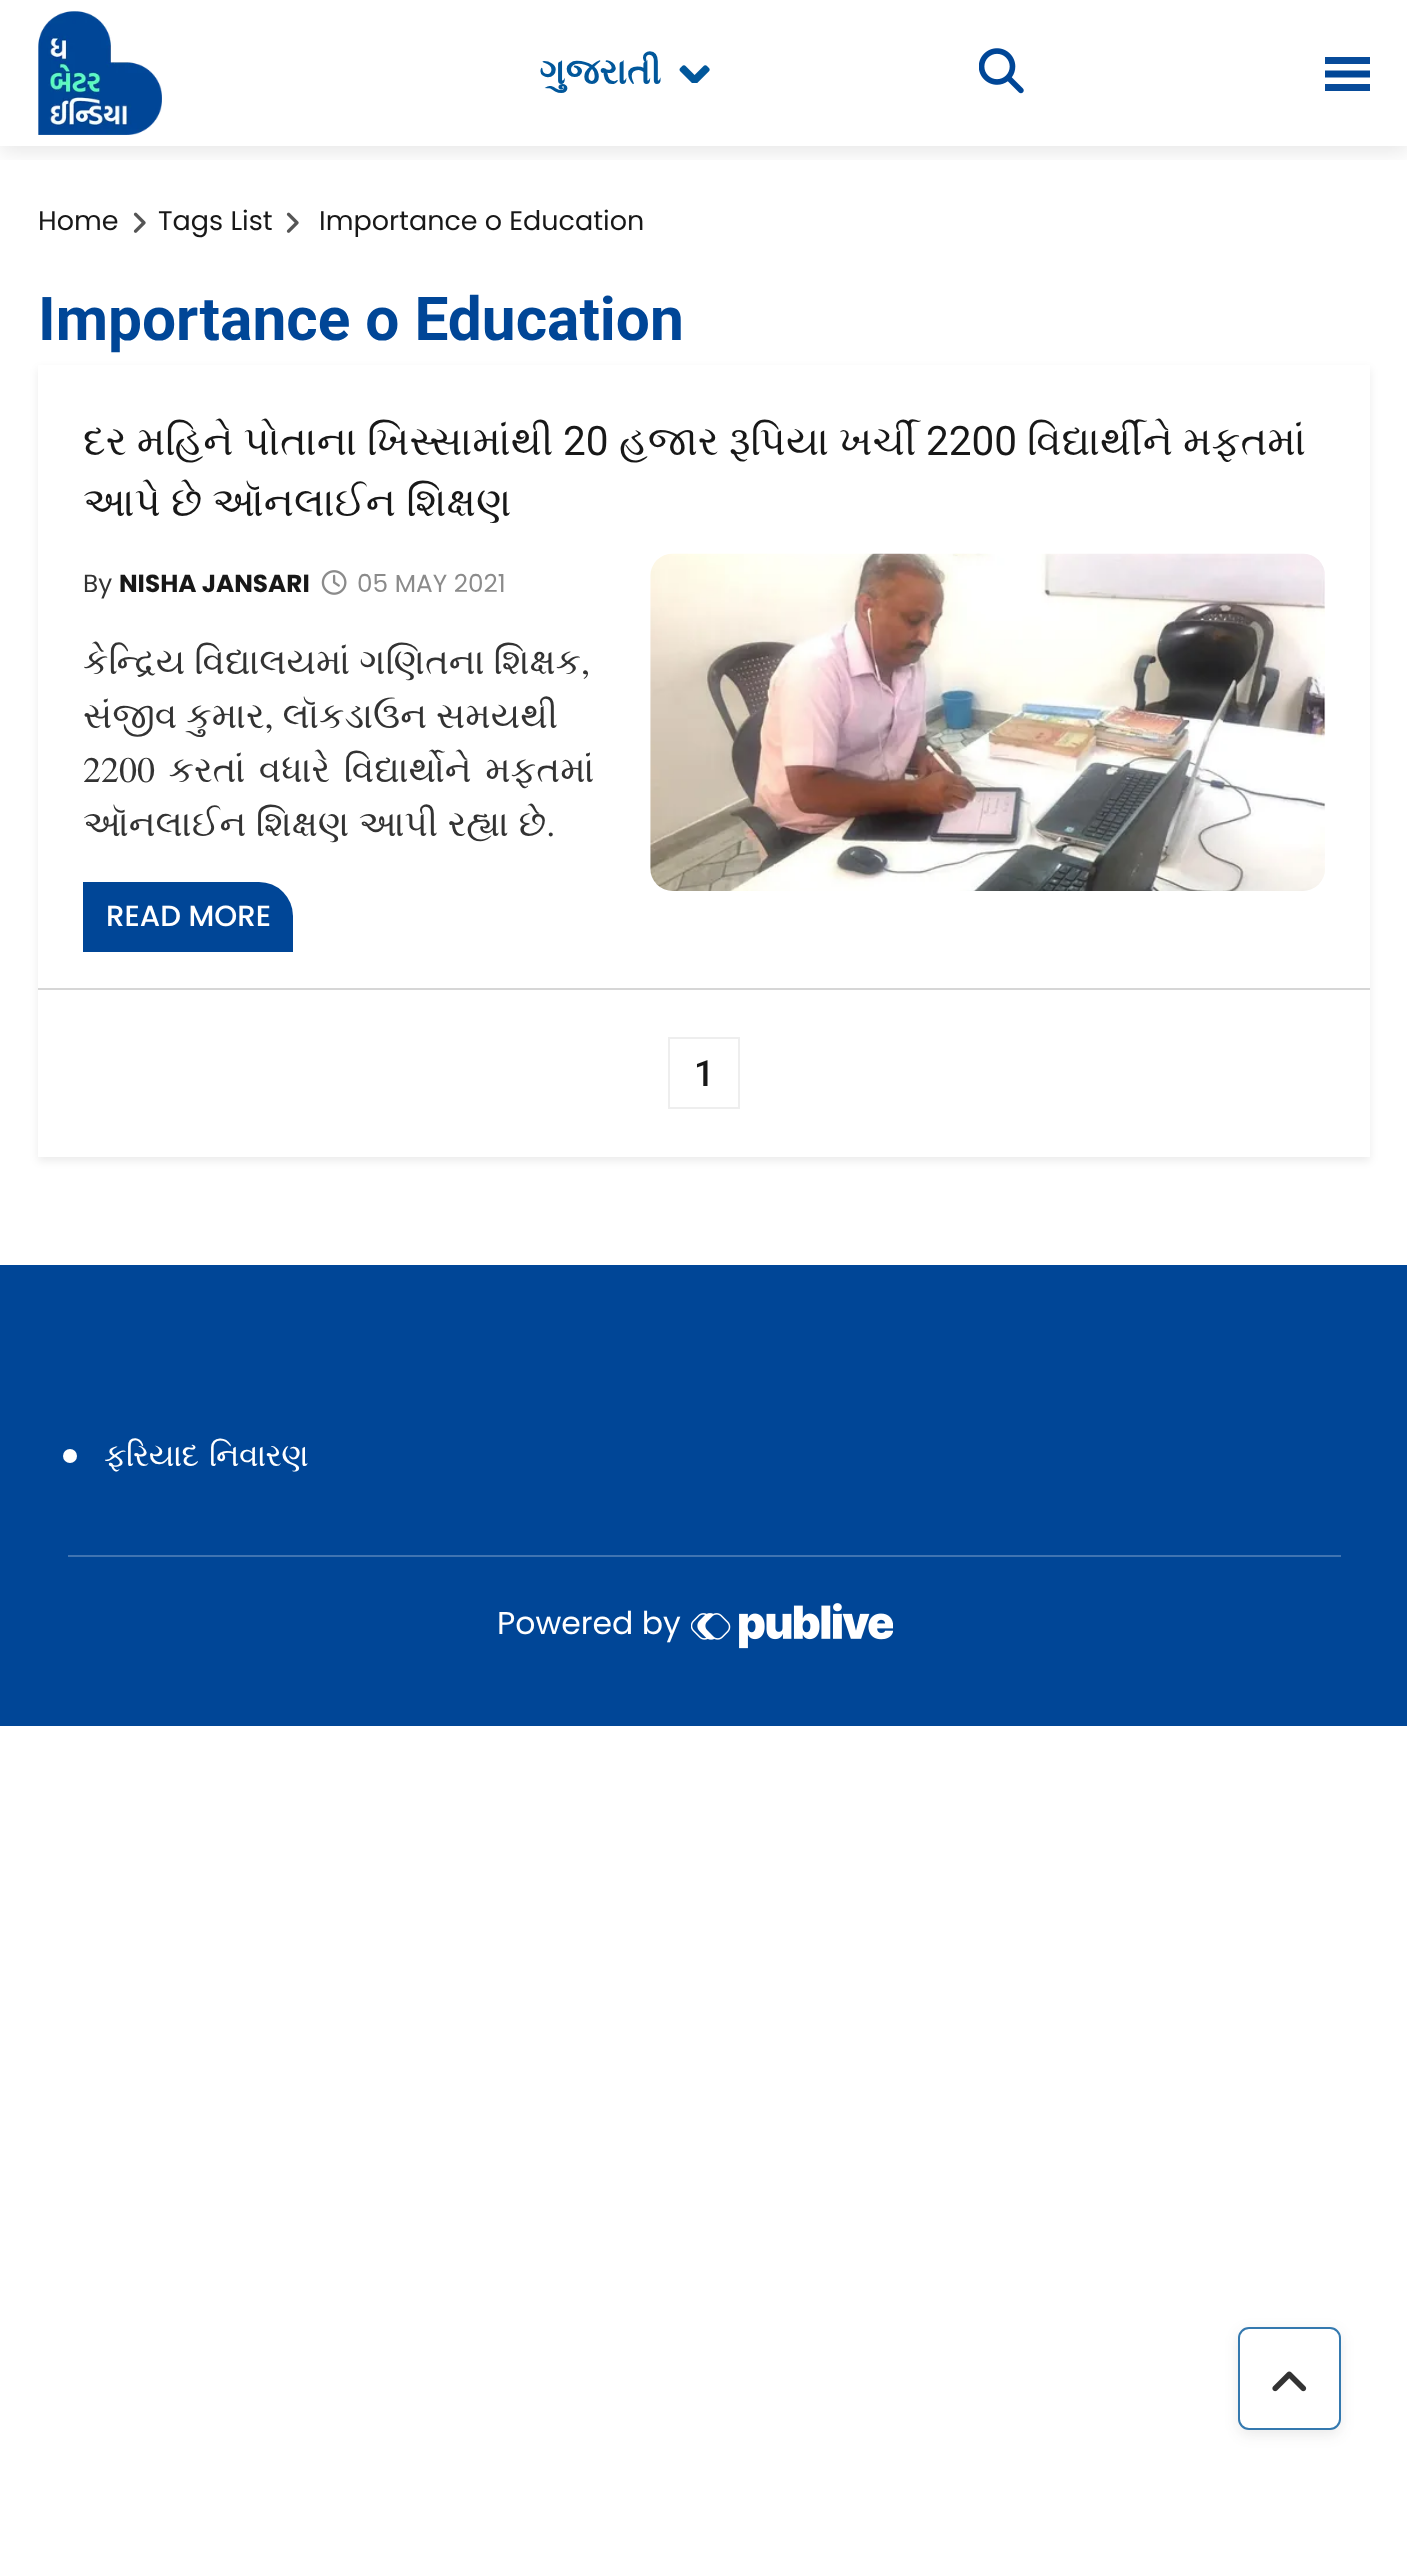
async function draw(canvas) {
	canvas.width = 1407;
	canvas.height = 2564;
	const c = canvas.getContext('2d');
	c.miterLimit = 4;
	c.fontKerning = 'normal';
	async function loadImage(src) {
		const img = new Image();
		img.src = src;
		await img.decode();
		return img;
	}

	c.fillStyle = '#fff';
	c.fillRect(0, 0, 1407, 2564);
	c.save();
	c.beginPath();
	c.rect(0, 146, 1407, 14);
	c.clip();
	c.fillStyle = '#0000001a';
	c.filter = 'blur(11px)';
	c.beginPath();
	c.rect(0, 5, 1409, 146);
	c.fill();
	c.filter = 'none';
	c.restore();
	c.drawImage(await loadImage('img1.png'), 38, 11, 124, 124);
	c.font = 'bold 36px FreeSerif';
	c.fillStyle = '#01579b';
	c.fillText('ગુજરાતી', 539, 84);
	c.drawImage(await loadImage('img2.png'), 679, 65, 31, 18);
	c.drawImage(await loadImage('img3.png'), 979, 48, 45, 46);
	c.fillStyle = '#074b9a';
	c.fillRect(1325, 57, 45, 7);
	c.beginPath();
	c.moveTo(1325, 74);
	c.lineTo(1370, 74);
	c.strokeStyle = '#004697';
	c.lineWidth = 6.8;
	c.stroke();
	c.fillRect(1325, 84, 45, 7);
	c.font = '27px Poppins';
	c.fillStyle = '#181818';
	c.fillText('Home', 38, 230);
	c.drawImage(await loadImage('img4.png'), 133, 212, 13, 21);
	c.fillText('Tags List', 158, 230);
	c.drawImage(await loadImage('img4.png'), 286, 212, 13, 21);
	c.fillText('Importance o Education', 319, 230);
	c.font = 'bold 60.4px Roboto';
	c.fillStyle = '#004697';
	c.fillText('Importance o Education', 38, 340);
	c.save();
	c.beginPath();
	c.moveTo(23, 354);
	c.lineTo(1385, 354);
	c.lineTo(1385, 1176);
	c.lineTo(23, 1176);
	c.closePath();
	c.moveTo(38, 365);
	c.lineTo(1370, 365);
	c.lineTo(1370, 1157);
	c.lineTo(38, 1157);
	c.closePath();
	c.clip('evenodd');
	c.fillStyle = '#00000014';
	c.filter = 'blur(4.5px)';
	c.beginPath();
	c.rect(38, 369, 1332, 792);
	c.fill();
	c.filter = 'none';
	c.restore();
	c.fillStyle = '#00000029';
	c.fillRect(38, 988, 1332, 2);
	c.font = '40.5px FreeSerif';
	c.fillStyle = '#181818';
	c.fillText('દર મહિને પોતાના ખિસ્સામાંથી', 83, 455);
	c.font = '40.5px Roboto';
	c.fillText('20', 563, 455);
	c.font = '40.5px FreeSerif';
	c.fillText('હજાર રૂપિયા ખર્ચી', 619, 455);
	c.font = '40.5px Roboto';
	c.fillText('2200', 926, 455);
	c.font = '40.5px FreeSerif';
	c.fillText('વિદ્યાર્થીને મફતમાં', 1027, 455);
	c.fillText('આપે છે ઑનલાઈન શિક્ષણ', 83, 516);
	c.font = '24.75px Poppins';
	c.fillStyle = '#333';
	c.fillText('By', 83, 592);
	c.font = 'bold 24.75px Poppins';
	c.fillStyle = '#181818';
	c.fillText('NISHA JANSARI', 119, 592);
	c.drawImage(await loadImage('img5.png'), 321, 570, 26, 25);
	c.font = '24.75px Poppins';
	c.fillStyle = '#8b8b8b';
	c.fillText('05 MAY 2021', 357, 592);
	c.drawImage(await loadImage('img6.png'), 650, 553, 676, 338);
	c.save();
	c.beginPath();
	c.rect(83, 637, 522, 216);
	c.clip();
	c.font = '36px FreeSerif';
	c.fillStyle = '#333';
	c.fillText('કેન્દ્રિય વિદ્યાલયમાં ગણિતના શિક્ષક,', 83, 674);
	c.fillText('સંજીવ કુમાર, લૉકડાઉન સમયથી', 83, 728);
	c.restore();
	c.wordSpacing = '4.5px';
	c.font = '36px FreeSerif';
	c.fillStyle = '#333';
	c.fillText('2200 કરતાં વધારે વિદ્યાર્થોને મફતમાં', 83, 782);
	c.wordSpacing = '0.5px';
	c.fillText('ઑનલાઈન શિક્ષણ આપી રહ્યા છે.', 83, 836);
	c.fillStyle = '#004697';
	c.beginPath();
	c.roundRect(83, 882, 210, 70, [0, 34, 0, 0]);
	c.fill();
	c.wordSpacing = '0px';
	c.font = '500 29.25px Poppins';
	c.fillStyle = '#fff';
	c.fillText('READ MORE', 106, 926);
	c.strokeStyle = '#eee';
	c.lineWidth = 2;
	c.strokeRect(669, 1038, 70, 70);
	c.font = '500 36px Roboto';
	c.fillStyle = '#181818';
	c.fillText('1', 694, 1086);
	c.fillStyle = '#004697';
	c.fillRect(0, 1265, 1407, 461);
	c.fillStyle = '#fff';
	c.beginPath();
	c.arc(70, 1456, 7, 0, 2 * Math.PI);
	c.fill();
	c.letterSpacing = '-0.6px';
	c.wordSpacing = '3px';
	c.font = '31.5px FreeSerif';
	c.fillText('ફરિયાદ નિવારણ', 104, 1466);
	c.fillStyle = '#4074b1';
	c.fillRect(68, 1555, 1273, 2);
	c.letterSpacing = '0px';
	c.wordSpacing = '0px';
	c.font = '31.5px Poppins';
	c.fillStyle = '#fff';
	c.fillText('Powered by', 497, 1634);
	c.drawImage(await loadImage('img7.png'), 691, 1603, 202, 46);
	c.fillStyle = '#3333331a';
	c.filter = 'blur(7px)';
	c.beginPath();
	c.roundRect(1238, 2331, 103, 104, 11);
	c.fill();
	c.filter = 'none';
	c.fillStyle = '#fff';
	c.beginPath();
	c.roundRect(1239, 2328, 101, 101, 10);
	c.fill();
	c.strokeStyle = '#3479af';
	c.stroke();
	c.drawImage(await loadImage('img8.png'), 1272, 2371, 35, 21);
}

draw(document.querySelector('canvas'));
